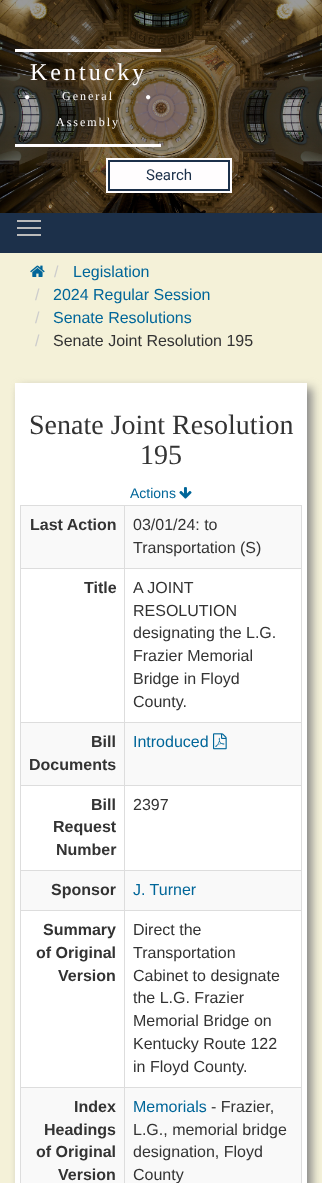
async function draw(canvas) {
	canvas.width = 322;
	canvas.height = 1183;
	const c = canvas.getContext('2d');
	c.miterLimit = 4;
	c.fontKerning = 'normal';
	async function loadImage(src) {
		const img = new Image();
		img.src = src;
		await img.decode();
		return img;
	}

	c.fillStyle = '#f4f1d8';
	c.fillRect(0, 0, 322, 1183);
	c.drawImage(await loadImage('img1.png'), 0, 0, 322, 213);
	c.fillStyle = '#fffdfe';
	c.fillRect(15, 49, 146, 3);
	c.fillRect(15, 144, 146, 3);
	c.letterSpacing = '3px';
	c.font = '24px Liberation Serif';
	c.fillText('Kentucky', 30, 80);
	c.drawImage(await loadImage('img2.png'), 25, 95, 5, 5);
	c.letterSpacing = '2px';
	c.font = '12px Liberation Serif';
	c.fillText('General', 62, 100);
	c.drawImage(await loadImage('img3.png'), 146, 95, 5, 5);
	c.fillText('Assembly', 56, 126);
	c.fillRect(106, 158, 126, 35);
	c.strokeStyle = '#1c304a';
	c.lineWidth = 2;
	c.strokeRect(109, 161, 120, 29);
	c.letterSpacing = '0px';
	c.font = '15px Roboto';
	c.fillStyle = '#1c304a';
	c.fillText('Search', 146, 180);
	for (const [x, y, w, h, color] of [
		[0, 213, 322, 40, '#1c304a'],
		[17, 227, 24, 2, '#bbb'],
		[17, 220, 24, 2, '#bbb'],
		[17, 234, 24, 2, '#bbb'],
	]) {
		c.fillStyle = color;
		c.fillRect(x, y, w, h);
	}
	c.drawImage(await loadImage('img4.png'), 30, 265, 15, 12);
	c.font = '16px Liberation Sans';
	c.fillStyle = '#ccc';
	c.fillText('/', 54, 277);
	c.fillStyle = '#069';
	c.fillText('Legislation', 73, 277);
	c.fillStyle = '#ccc';
	c.fillText('/', 35, 300);
	c.fillStyle = '#069';
	c.fillText('2024 Regular Session', 53, 300);
	c.fillStyle = '#ccc';
	c.fillText('/', 35, 323);
	c.fillStyle = '#069';
	c.fillText('Senate Resolutions', 53, 323);
	c.fillStyle = '#ccc';
	c.fillText('/', 35, 346);
	c.fillStyle = '#333';
	c.fillText('Senate Joint Resolution 195', 53, 346);
	c.fillStyle = '#888';
	c.filter = 'blur(5px)';
	c.beginPath();
	c.rect(20, 388, 292, 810);
	c.fill();
	c.filter = 'none';
	c.fillStyle = '#fff';
	c.fillRect(15, 383, 292, 800);
	c.font = '28px Liberation Serif';
	c.fillStyle = '#333';
	c.fillText('Senate Joint Resolution', 29, 434);
	c.fillText('195', 140, 464);
	c.font = '14px Liberation Sans';
	c.fillStyle = '#069';
	c.fillText('Actions', 130, 498);
	c.drawImage(await loadImage('img5.png'), 179, 487, 13, 12);
	for (const [x, y, w, h, color] of [
		[20, 505, 282, 1, '#ddd'],
		[301, 505, 1, 678, '#ddd'],
		[20, 505, 1, 678, '#ddd'],
		[21, 506, 280, 62, '#f9f9f9'],
	]) {
		c.fillStyle = color;
		c.fillRect(x, y, w, h);
	}
	c.font = 'bold 16px Liberation Sans';
	c.fillStyle = '#333';
	c.fillText('Last Action', 30, 530);
	for (const [x, y, w, h, color] of [
		[124, 568, 178, 1, '#ddd'],
		[124, 722, 178, 1, '#ddd'],
		[21, 723, 280, 62, '#f9f9f9'],
		[124, 785, 178, 1, '#ddd'],
		[124, 870, 178, 1, '#ddd'],
		[21, 871, 280, 39, '#f9f9f9'],
		[124, 910, 178, 1, '#ddd'],
		[124, 1087, 178, 1, '#ddd'],
		[21, 1088, 280, 95, '#f9f9f9'],
		[124, 1087, 1, 96, '#ddd'],
		[20, 1087, 105, 1, '#ddd'],
		[124, 910, 1, 178, '#ddd'],
		[20, 910, 105, 1, '#ddd'],
		[124, 870, 1, 41, '#ddd'],
		[20, 870, 105, 1, '#ddd'],
		[124, 785, 1, 86, '#ddd'],
		[20, 785, 105, 1, '#ddd'],
		[124, 722, 1, 64, '#ddd'],
		[20, 722, 105, 1, '#ddd'],
		[124, 568, 1, 155, '#ddd'],
		[20, 568, 105, 1, '#ddd'],
		[124, 505, 1, 64, '#ddd'],
	]) {
		c.fillStyle = color;
		c.fillRect(x, y, w, h);
	}
	c.font = '16px Liberation Sans';
	c.fillStyle = '#333';
	c.fillText('03/01/24: to', 133, 530);
	c.fillText('Transportation (S)', 133, 553);
	c.font = 'bold 16px Liberation Sans';
	c.fillText('Title', 84, 593);
	c.font = '16px Liberation Sans';
	for (const [text, x, y] of [
		['A JOINT', 133, 593],
		['RESOLUTION', 133, 616],
		['designating the L.G.', 133, 638],
		['Frazier Memorial', 133, 661],
		['Bridge in Floyd', 133, 684],
		['County.', 133, 707],
	]) {
		c.fillText(text, x, y);
	}
	c.font = 'bold 16px Liberation Sans';
	c.fillText('Bill', 91, 747);
	c.fillText('Documents', 29, 770);
	c.font = '16px Liberation Sans';
	c.fillStyle = '#069';
	c.fillText('Introduced', 133, 747);
	c.drawImage(await loadImage('img6.png'), 213, 733, 14, 17);
	c.font = 'bold 16px Liberation Sans';
	c.fillStyle = '#333';
	for (const [text, x, y] of [
		['Bill', 91, 810],
		['Request', 53, 832],
		['Number', 56, 855],
	]) {
		c.fillText(text, x, y);
	}
	c.font = '16px Liberation Sans';
	c.fillText('2397', 133, 810);
	c.font = 'bold 16px Liberation Sans';
	c.fillText('Sponsor', 51, 895);
	c.font = '16px Liberation Sans';
	c.fillStyle = '#069';
	c.fillText('J. Turner', 133, 895);
	c.font = 'bold 16px Liberation Sans';
	c.fillStyle = '#333';
	for (const [text, x, y] of [
		['Summary', 43, 935],
		['of Original', 36, 958],
		['Version', 58, 981],
	]) {
		c.fillText(text, x, y);
	}
	c.font = '16px Liberation Sans';
	for (const [text, x, y] of [
		['Direct the', 133, 935],
		['Transportation', 133, 958],
		['Cabinet to designate', 133, 981],
		['the L.G. Frazier', 133, 1003],
		['Memorial Bridge on', 133, 1026],
		['Kentucky Route 122', 133, 1049],
		['in Floyd County.', 133, 1072],
	]) {
		c.fillText(text, x, y);
	}
	c.font = 'bold 16px Liberation Sans';
	for (const [text, x, y] of [
		['Index', 74, 1112],
		['Headings', 44, 1135],
		['of Original', 36, 1157],
		['Version', 58, 1180],
	]) {
		c.fillText(text, x, y);
	}
	c.font = '16px Liberation Sans';
	c.fillStyle = '#069';
	c.fillText('Memorials', 133, 1112);
	c.fillStyle = '#333';
	for (const [text, x, y] of [
		['- Frazier,', 211, 1112],
		['L.G., memorial bridge', 133, 1135],
		['designation, Floyd', 133, 1157],
		['County', 133, 1180],
	]) {
		c.fillText(text, x, y);
	}
}

draw(document.querySelector('canvas'));
